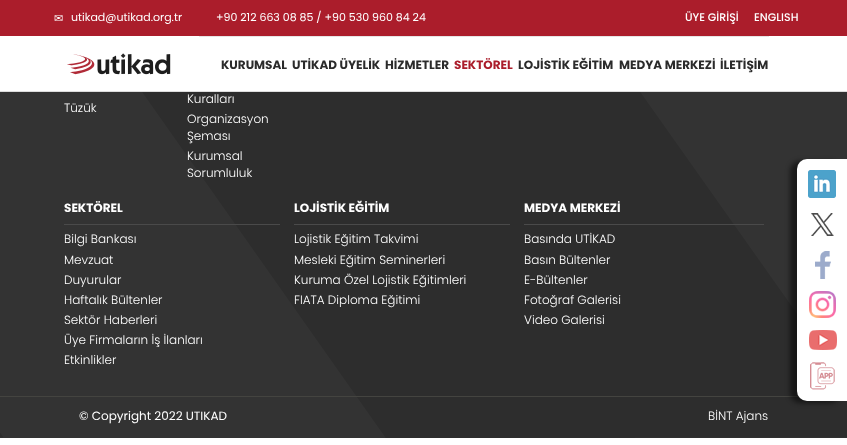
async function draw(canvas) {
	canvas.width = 847;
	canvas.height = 445;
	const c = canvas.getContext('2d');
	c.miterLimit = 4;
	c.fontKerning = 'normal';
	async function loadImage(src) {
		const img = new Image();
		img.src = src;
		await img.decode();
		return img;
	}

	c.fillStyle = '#fff';
	c.fillRect(0, 0, 847, 445);
	c.fillStyle = '#ddd';
	c.fillRect(0, 91, 847, 1);
	c.fillStyle = '#ab1d2b';
	c.fillRect(0, 0, 847, 36);
	c.font = '11px DejaVu Sans';
	c.fillStyle = '#fff';
	c.fillText('✉', 54, 22);
	c.font = '11px Poppins';
	c.fillText('utikad@utikad.org.tr', 71, 21);
	c.fillText('+90 212 663 08 85 / +90 530 960 84 24', 216, 21);
	c.font = '500 11px Poppins';
	c.fillText('ÜYE GİRİŞİ', 685, 21);
	c.fillText('ENGLISH', 754, 21);
	c.drawImage(await loadImage('img1.png'), 67, 53, 104, 22);
	c.fillStyle = '#e5e5e5';
	c.fillRect(199, 36, 570, 1);
	c.font = 'bold 12px Poppins';
	c.fillStyle = '#2b2b2b';
	for (const [text, x, y] of [
		['KURUMSAL', 221, 69],
		['UTİKAD ÜYELİK', 292, 69],
		['HİZMETLER', 385, 69],
	]) {
		c.fillText(text, x, y);
	}
	c.fillStyle = '#ab1d2b';
	c.fillText('SEKTÖREL', 454, 69);
	c.fillStyle = '#2b2b2b';
	for (const [text, x, y] of [
		['LOJİSTİK EĞİTİM', 518, 69],
		['MEDYA MERKEZİ', 619, 69],
		['İLETİŞİM', 720, 69],
	]) {
		c.fillText(text, x, y);
	}
	c.drawImage(await loadImage('img2.png'), 0, 92, 847, 346);
	c.font = '300 12px Poppins';
	c.fillStyle = '#fff';
	for (const [text, x, y] of [
		['Tüzük', 64, 112],
		['Kuralları', 187, 103],
		['Organizasyon', 187, 123],
		['Şeması', 187, 140],
		['Kurumsal', 187, 160],
		['Sorumluluk', 187, 177],
	]) {
		c.fillText(text, x, y);
	}
	c.fillStyle = '#4a4a4a';
	c.fillRect(64, 224, 216, 1);
	c.font = 'bold 12px Poppins';
	c.fillStyle = '#fff';
	c.fillText('SEKTÖREL', 64, 212);
	c.font = '300 12px Poppins';
	for (const [text, x, y] of [
		['Bilgi Bankası', 64, 243],
		['Mevzuat', 64, 264],
		['Duyurular', 64, 284],
		['Haftalık Bültenler', 64, 304],
		['Sektör Haberleri', 64, 324],
		['Üye Firmaların İş İlanları', 64, 344],
		['Etkinlikler', 64, 364],
	]) {
		c.fillText(text, x, y);
	}
	c.fillStyle = '#4a4a4a';
	c.fillRect(294, 224, 216, 1);
	c.font = 'bold 12px Poppins';
	c.fillStyle = '#fff';
	c.fillText('LOJİSTİK EĞİTİM', 294, 212);
	c.font = '300 12px Poppins';
	for (const [text, x, y] of [
		['Lojistik Eğitim Takvimi', 294, 243],
		['Mesleki Eğitim Seminerleri', 294, 264],
		['Kuruma Özel Lojistik Eğitimleri', 294, 284],
		['FIATA Diploma Eğitimi', 294, 304],
	]) {
		c.fillText(text, x, y);
	}
	c.fillStyle = '#4a4a4a';
	c.fillRect(524, 224, 240, 1);
	c.font = 'bold 12px Poppins';
	c.fillStyle = '#fff';
	c.fillText('MEDYA MERKEZİ', 524, 212);
	c.font = '300 12px Poppins';
	for (const [text, x, y] of [
		['Basında UTİKAD', 524, 243],
		['Basın Bültenler', 524, 264],
		['E-Bültenler', 524, 284],
		['Fotoğraf Galerisi', 524, 304],
		['Video Galerisi', 524, 324],
	]) {
		c.fillText(text, x, y);
	}
	c.fillStyle = '#444440';
	c.fillRect(0, 396, 799, 1);
	c.font = '12px Poppins';
	c.fillStyle = '#fff';
	c.fillText('© Copyright 2022 UTIKAD', 79, 420);
	c.font = '300 12px Poppins';
	c.fillText('BİNT Ajans', 708, 420);
	c.fillStyle = '#00000080';
	c.filter = 'blur(2.5px)';
	c.beginPath();
	c.roundRect(790, 161, 50, 242, 10);
	c.fill();
	c.filter = 'none';
	c.fillStyle = '#fff';
	c.beginPath();
	c.roundRect(797, 159, 50, 242, [10, 0, 0, 10]);
	c.fill();
	c.drawImage(await loadImage('img3.png'), 808, 170, 28, 28);
	c.drawImage(await loadImage('img4.png'), 811, 213, 23, 23);
	c.drawImage(await loadImage('img5.png'), 815, 251, 16, 28);
	c.drawImage(await loadImage('img6.png'), 809, 291, 27, 27);
	c.drawImage(await loadImage('img7.png'), 809, 330, 28, 20);
	c.drawImage(await loadImage('img8.png'), 810, 362, 25, 28);
}

draw(document.querySelector('canvas'));
